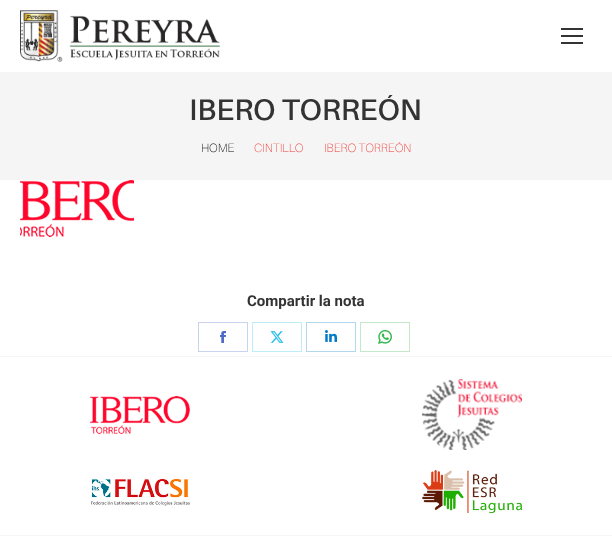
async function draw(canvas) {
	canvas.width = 612;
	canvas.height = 556;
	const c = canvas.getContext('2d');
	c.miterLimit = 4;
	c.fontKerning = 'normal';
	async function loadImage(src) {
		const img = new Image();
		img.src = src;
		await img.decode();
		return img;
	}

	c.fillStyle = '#fff';
	c.fillRect(0, 0, 612, 556);
	c.drawImage(await loadImage('img1.png'), 20, 10, 200, 52);
	for (const [x, y, w, h, color] of [
		[561, 28, 22, 2, '#333'],
		[561, 35, 22, 2, '#333'],
		[561, 42, 22, 2, '#333'],
		[0, 72, 612, 108, '#f5f5f5'],
	]) {
		c.fillStyle = color;
		c.fillRect(x, y, w, h);
	}
	c.font = '600 29.75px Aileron';
	c.fillStyle = '#333';
	c.fillText('IBERO TORREÓN', 189, 120);
	c.font = '100 12px Aileron';
	c.fillStyle = '#000';
	c.fillText('HOME', 201, 152);
	c.fillStyle = '#ed3833';
	c.fillText('CINTILLO', 254, 152);
	c.fillText('IBERO TORREÓN', 324, 152);
	c.drawImage(await loadImage('img2.png'), 20, 180, 114, 57);
	c.font = 'bold 15px Roboto';
	c.fillStyle = '#333';
	c.fillText('Compartir la nota', 247, 306);
	c.strokeStyle = '#c9d2ee';
	c.strokeRect(198.5, 322.5, 49, 29);
	c.drawImage(await loadImage('img3.png'), 220, 331, 6, 12);
	c.strokeStyle = '#bfecf9';
	c.strokeRect(252.5, 322.5, 49, 29);
	c.drawImage(await loadImage('img4.png'), 270, 331, 14, 12);
	c.strokeStyle = '#b3d7ee';
	c.strokeRect(306.5, 322.5, 49, 29);
	c.drawImage(await loadImage('img5.png'), 325, 330, 12, 12);
	c.strokeStyle = '#c3e9ca';
	c.strokeRect(360.5, 322.5, 49, 29);
	c.drawImage(await loadImage('img6.png'), 378, 330, 14, 14);
	c.fillStyle = '#f5f5f5';
	c.fillRect(0, 356, 612, 1);
	c.fillRect(0, 535, 612, 1);
	c.drawImage(await loadImage('img7.png'), 90, 396, 100, 38);
	c.drawImage(await loadImage('img8.png'), 422, 379, 100, 71);
	c.drawImage(await loadImage('img9.png'), 91, 478, 99, 28);
	c.drawImage(await loadImage('img10.png'), 422, 470, 100, 43);
}

draw(document.querySelector('canvas'));
